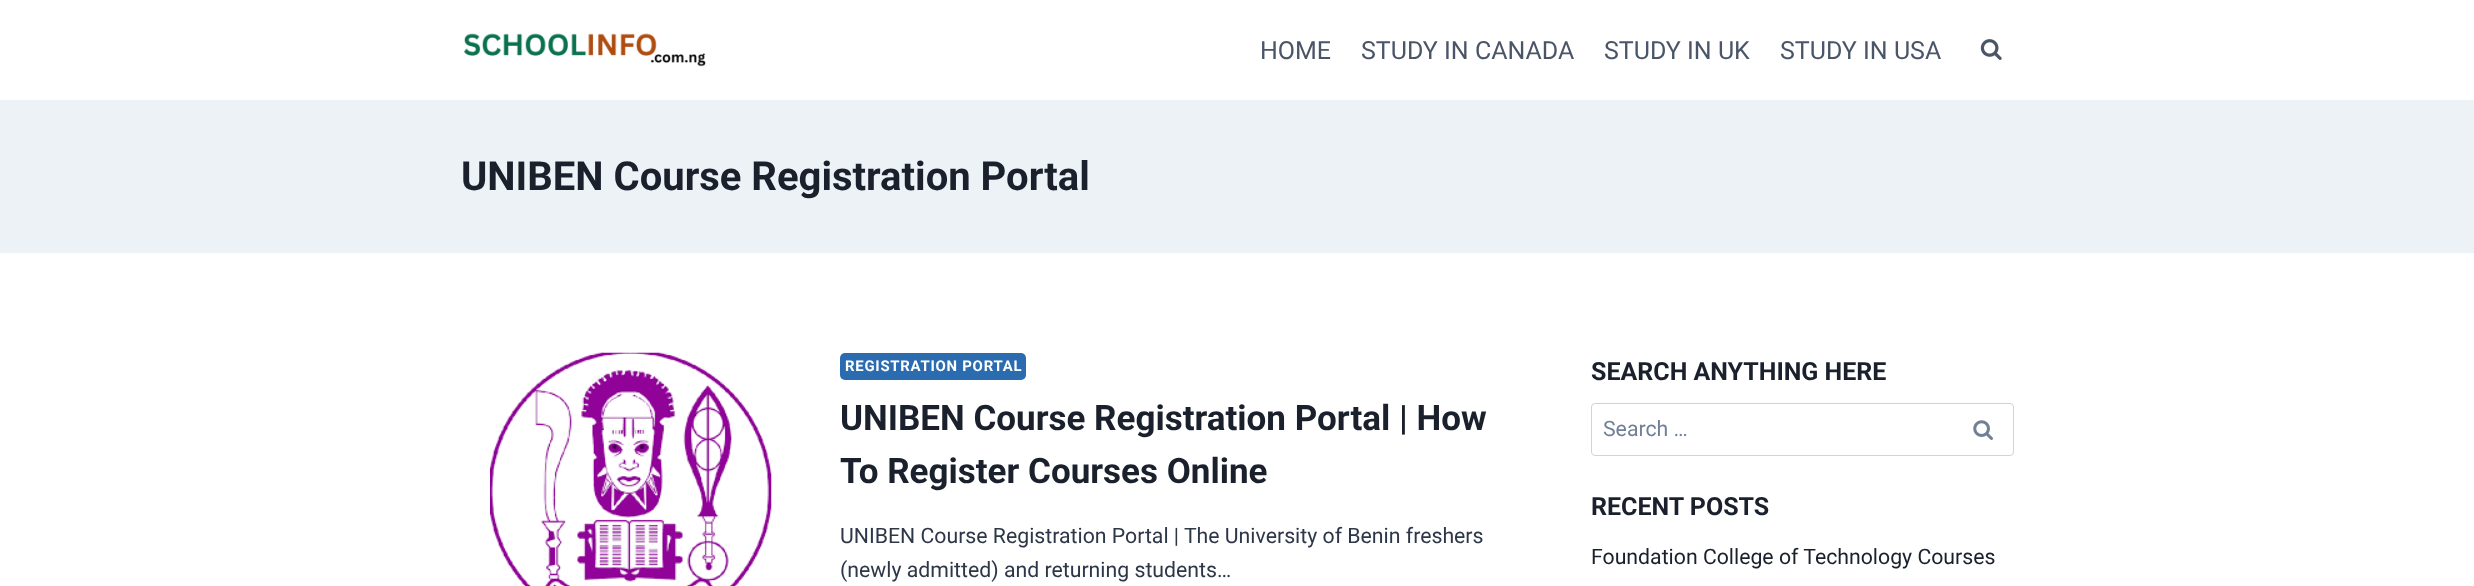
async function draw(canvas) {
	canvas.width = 2474;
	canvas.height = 586;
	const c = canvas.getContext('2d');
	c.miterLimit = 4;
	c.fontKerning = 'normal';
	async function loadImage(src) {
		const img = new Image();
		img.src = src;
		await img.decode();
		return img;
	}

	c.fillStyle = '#fff';
	c.fillRect(0, 0, 2474, 586);
	c.drawImage(await loadImage('img1.png'), 464, 33, 242, 34);
	c.font = '25px Roboto';
	c.fillStyle = '#4a5568';
	for (const [text, x, y] of [
		['HOME', 1260, 59],
		['STUDY IN CANADA', 1361, 59],
		['STUDY IN UK', 1604, 59],
		['STUDY IN USA', 1780, 59],
	]) {
		c.fillText(text, x, y);
	}
	c.drawImage(await loadImage('img2.png'), 1980, 39, 22, 21);
	c.fillStyle = '#edf2f7';
	c.fillRect(0, 100, 2474, 153);
	c.font = 'bold 40px Roboto';
	c.fillStyle = '#1a202c';
	c.fillText('UNIBEN Course Registration Portal', 461, 190);
	c.drawImage(await loadImage('img3.png'), 490, 352, 282, 234);
	c.fillStyle = '#2b6cb0';
	c.beginPath();
	c.roundRect(840, 353, 186, 27, 5);
	c.fill();
	c.letterSpacing = '0.75px';
	c.font = 'bold 14.9px Roboto';
	c.fillStyle = '#fff';
	c.fillText('REGISTRATION PORTAL', 845, 371);
	c.letterSpacing = '0px';
	c.font = 'bold 35px Roboto';
	c.fillStyle = '#1a202c';
	c.fillText('UNIBEN Course Registration Portal | How', 840, 430);
	c.fillText('To Register Courses Online', 840, 483);
	c.font = '21.25px Roboto';
	c.fillStyle = '#2d3748';
	c.fillText('UNIBEN Course Registration Portal | The University of Benin freshers', 840, 543);
	c.fillText('(newly admitted) and returning students…', 840, 577);
	c.font = 'bold 25px Roboto';
	c.fillStyle = '#1a202c';
	c.fillText('SEARCH ANYTHING HERE', 1591, 380);
	c.beginPath();
	c.roundRect(1591.5, 403.5, 422, 52, 3.5);
	c.strokeStyle = '#cbd5e0';
	c.stroke();
	c.font = '21.25px Roboto';
	c.fillStyle = '#718096';
	c.fillText('Search …', 1603, 436);
	c.drawImage(await loadImage('img4.png'), 1973, 420, 20, 20);
	c.font = 'bold 25px Roboto';
	c.fillStyle = '#1a202c';
	c.fillText('RECENT POSTS', 1591, 515);
	c.font = '21.25px Roboto';
	c.fillText('Foundation College of Technology Courses', 1591, 564);
}

draw(document.querySelector('canvas'));
